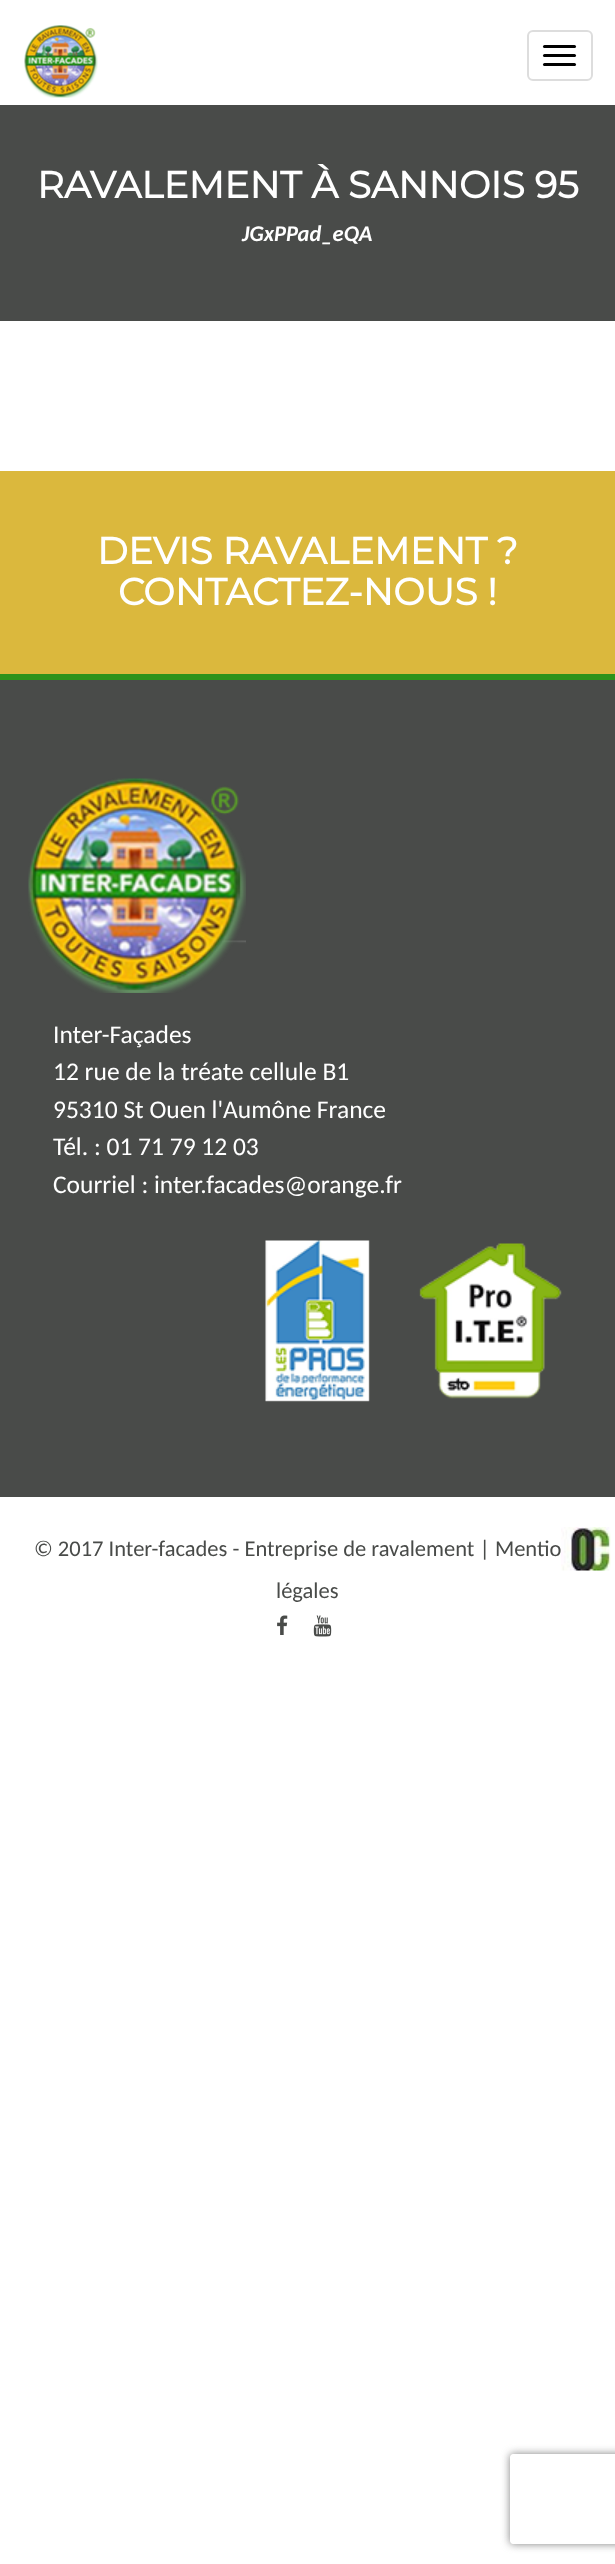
async function draw(canvas) {
	canvas.width = 615;
	canvas.height = 2564;
	const c = canvas.getContext('2d');
	c.miterLimit = 4;
	c.fontKerning = 'normal';
	async function loadImage(src) {
		const img = new Image();
		img.src = src;
		await img.decode();
		return img;
	}

	c.fillStyle = '#fff';
	c.fillRect(0, 0, 615, 2564);
	c.drawImage(await loadImage('img1.png'), 24, 25, 74, 73);
	c.beginPath();
	c.roundRect(528, 31, 64, 49, 5);
	c.strokeStyle = '#ddd';
	c.lineWidth = 2;
	c.stroke();
	c.fillStyle = '#000';
	c.beginPath();
	c.roundRect(543, 45, 33, 3, 1.5);
	c.fill();
	c.beginPath();
	c.roundRect(543, 54, 33, 3, 1.5);
	c.fill();
	c.beginPath();
	c.roundRect(543, 63, 33, 3, 1.5);
	c.fill();
	c.fillStyle = '#494b49';
	c.fillRect(0, 105, 615, 216);
	c.font = 'bold 37.5px Montserrat';
	c.fillStyle = '#fff';
	c.fillText('RAVALEMENT À SANNOIS 95', 37, 198);
	c.font = 'italic bold 22.5px Carlito';
	c.fillText('JGxPPad_eQA', 242, 241);
	c.fillStyle = '#dbb83d';
	c.fillRect(0, 471, 615, 203);
	c.fillStyle = '#2c921b';
	c.fillRect(0, 674, 615, 6);
	c.font = 'bold 37.5px Montserrat';
	c.fillStyle = '#fff';
	c.fillText('DEVIS RAVALEMENT ?', 97, 564);
	c.fillText('CONTACTEZ-NOUS !', 118, 605);
	c.fillStyle = '#494b49';
	c.fillRect(0, 680, 615, 817);
	c.drawImage(await loadImage('img2.png'), 28, 778, 218, 215);
	c.font = '25.5px Carlito';
	c.fillStyle = '#fff';
	for (const [text, x, y] of [
		['Inter-Façades', 53, 1043],
		['12 rue de la tréate cellule B1', 53, 1080],
		['95310 St Ouen l\'Aumône France', 53, 1118],
		['Tél. : 01 71 79 12 03', 53, 1155],
		['Courriel : inter.facades@orange.fr', 53, 1193],
	]) {
		c.fillText(text, x, y);
	}
	c.drawImage(await loadImage('img3.png'), 265, 1240, 105, 162);
	c.drawImage(await loadImage('img4.png'), 419, 1243, 143, 156);
	c.font = '22.5px Carlito';
	c.fillStyle = '#494b49';
	c.fillText('© 2017 Inter-facades - Entreprise de ravalement | Mentio', 34, 1556);
	c.fillText('légales', 276, 1598);
	c.drawImage(await loadImage('img5.png'), 561, 1527, 50, 44);
	c.drawImage(await loadImage('img6.png'), 277, 1615, 11, 20);
	c.drawImage(await loadImage('img7.png'), 313, 1615, 19, 22);
	c.save();
	c.beginPath();
	c.moveTo(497, 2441);
	c.lineTo(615, 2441);
	c.lineTo(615, 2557);
	c.lineTo(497, 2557);
	c.closePath();
	c.moveTo(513, 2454);
	c.lineTo(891, 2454);
	c.bezierCurveTo(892.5, 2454, 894, 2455.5, 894, 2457);
	c.lineTo(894, 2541);
	c.bezierCurveTo(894, 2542.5, 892.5, 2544, 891, 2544);
	c.lineTo(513, 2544);
	c.bezierCurveTo(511.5, 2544, 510, 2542.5, 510, 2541);
	c.lineTo(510, 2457);
	c.bezierCurveTo(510, 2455.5, 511.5, 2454, 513, 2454);
	c.closePath();
	c.clip('evenodd');
	c.fillStyle = '#808080';
	c.filter = 'blur(4px)';
	c.beginPath();
	c.roundRect(510, 2454, 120, 90, 3);
	c.fill();
	c.filter = 'none';
	c.restore();
}

draw(document.querySelector('canvas'));
